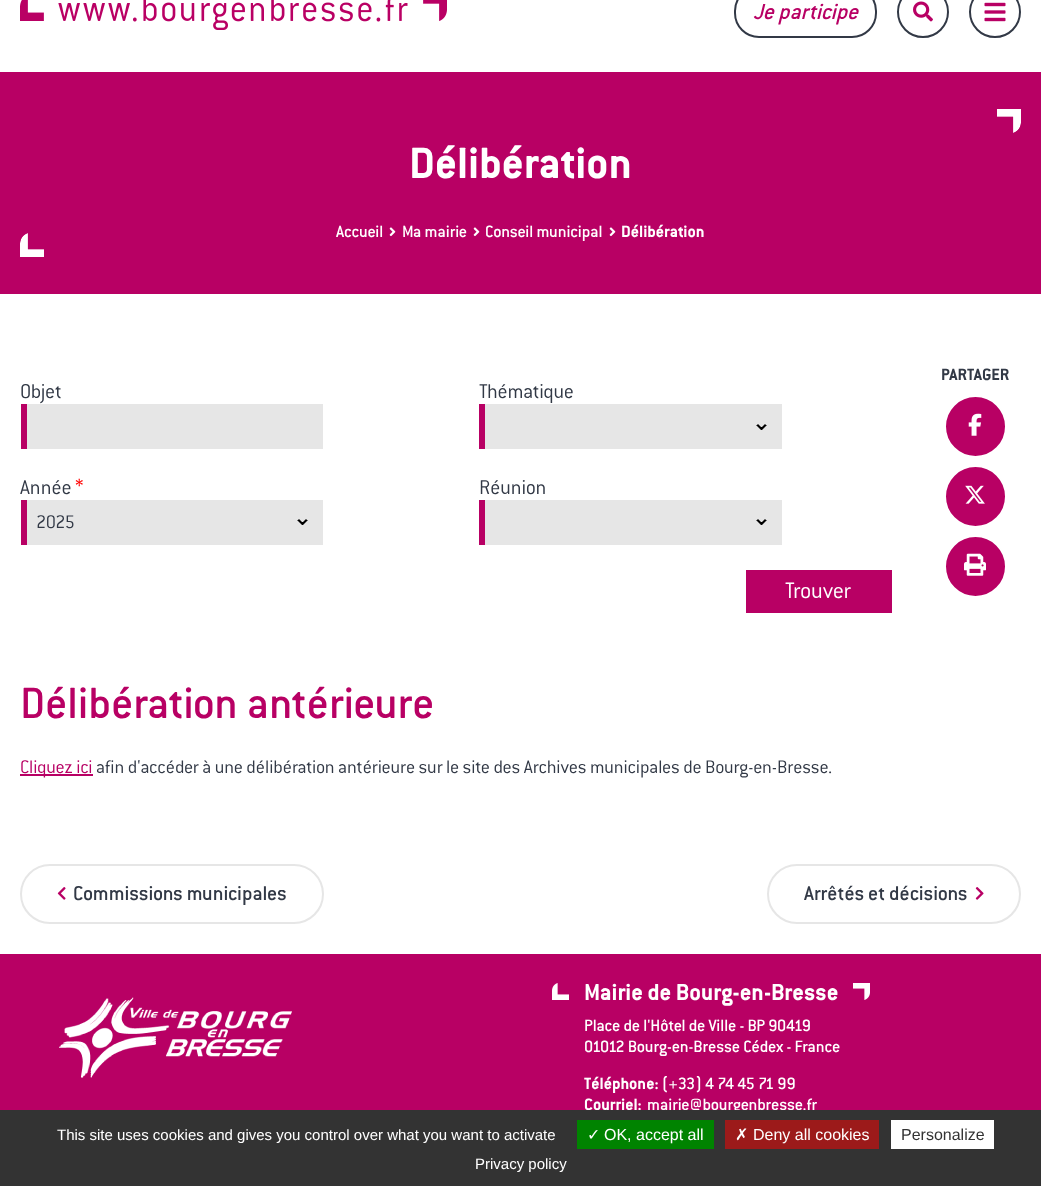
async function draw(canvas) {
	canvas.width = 1041;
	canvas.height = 1186;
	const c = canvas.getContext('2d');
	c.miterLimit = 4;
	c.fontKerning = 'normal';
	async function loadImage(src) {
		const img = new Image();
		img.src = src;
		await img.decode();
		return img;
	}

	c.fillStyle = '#fff';
	c.fillRect(0, 0, 1041, 1186);
	c.drawImage(await loadImage('img1.png'), 20, 0, 427, 30);
	c.beginPath();
	c.roundRect(735, -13, 141, 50, 24);
	c.strokeStyle = '#323946';
	c.lineWidth = 2;
	c.stroke();
	c.font = 'italic 500 24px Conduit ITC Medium';
	c.fillStyle = '#b80064';
	c.fillText('Je participe', 753, 19);
	c.beginPath();
	c.arc(923, 12, 25, 0, 2 * Math.PI);
	c.stroke();
	c.drawImage(await loadImage('img2.png'), 913, 1, 20, 21);
	c.beginPath();
	c.arc(995, 12, 25, 0, 2 * Math.PI);
	c.stroke();
	c.drawImage(await loadImage('img3.png'), 984, 2, 22, 20);
	c.fillRect(0, 72, 1041, 222);
	c.drawImage(await loadImage('img4.png'), 997, 109, 24, 24);
	c.font = 'bold 48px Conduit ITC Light';
	c.fillStyle = '#fff';
	c.fillText('Délibération', 409, 178);
	c.drawImage(await loadImage('img5.png'), 20, 233, 24, 24);
	c.font = '500 18px Conduit ITC Medium';
	c.fillText('Accueil', 336, 237);
	c.drawImage(await loadImage('img6.png'), 389, 227, 7, 10);
	c.fillText('Ma mairie', 402, 237);
	c.drawImage(await loadImage('img6.png'), 473, 227, 7, 10);
	c.fillText('Conseil municipal', 485, 237);
	c.drawImage(await loadImage('img6.png'), 609, 227, 7, 10);
	c.font = 'bold 18px Conduit ITC Light';
	c.fillText('Délibération', 621, 237);
	c.fillStyle = '#323946';
	c.fillText('PARTAGER', 941, 380);
	c.fillStyle = '#b80064';
	c.beginPath();
	c.arc(975.5, 426.5, 30.5, 0, 2 * Math.PI);
	c.fill();
	c.strokeStyle = '#fff';
	c.stroke();
	c.drawImage(await loadImage('img7.png'), 968, 413, 14, 23);
	c.beginPath();
	c.arc(975.5, 496.5, 30.5, 0, 2 * Math.PI);
	c.fill();
	c.stroke();
	c.drawImage(await loadImage('img8.png'), 965, 485, 20, 19);
	c.beginPath();
	c.arc(975.5, 566.5, 30.5, 0, 2 * Math.PI);
	c.fill();
	c.stroke();
	c.drawImage(await loadImage('img9.png'), 964, 553, 22, 23);
	c.font = '300 22px Conduit ITC Light';
	c.fillStyle = '#323946';
	c.fillText('Objet', 20, 398);
	c.fillStyle = '#e6e6e6';
	c.fillRect(27, 404, 296, 45);
	c.fillStyle = '#b80064';
	c.fillRect(21, 404, 6, 45);
	c.fillStyle = '#323946';
	c.fillText('Thématique', 479, 398);
	c.fillStyle = '#e6e6e6';
	c.fillRect(485, 404, 297, 45);
	c.drawImage(await loadImage('img10.png'), 756, 424, 11, 6);
	c.fillStyle = '#b80064';
	c.fillRect(479, 404, 6, 45);
	c.fillStyle = '#323946';
	c.fillText('Année', 20, 494);
	c.fillStyle = '#f00';
	c.fillText('*', 75, 494);
	c.fillStyle = '#e6e6e6';
	c.fillRect(27, 500, 296, 45);
	c.drawImage(await loadImage('img10.png'), 297, 519, 11, 6);
	c.fillStyle = '#b80064';
	c.fillRect(21, 500, 6, 45);
	c.font = '300 20px Conduit ITC Light';
	c.fillStyle = '#323946';
	c.fillText('2025', 36, 528);
	c.font = '300 22px Conduit ITC Light';
	c.fillText('Réunion', 479, 494);
	c.fillStyle = '#e6e6e6';
	c.fillRect(485, 500, 297, 45);
	c.drawImage(await loadImage('img10.png'), 756, 519, 11, 6);
	c.fillStyle = '#b80064';
	c.fillRect(479, 500, 6, 45);
	c.fillRect(746, 570, 146, 43);
	c.font = '300 24.5px Conduit ITC Light';
	c.fillStyle = '#fff';
	c.fillText('Trouver', 785, 598);
	c.font = '500 48px Conduit ITC Medium';
	c.fillStyle = '#b80064';
	c.fillText('Délibération antérieure', 20, 718);
	c.fillRect(20, 774, 73, 2);
	c.font = '300 20px Conduit ITC Light';
	c.fillText('Cliquez ici', 20, 773);
	c.fillStyle = '#323946';
	c.fillText('afin d\'accéder à une délibération antérieure sur le site des Archives municipales de Bourg-en-Bresse.', 96, 773);
	c.beginPath();
	c.roundRect(21, 865, 302, 58, 29);
	c.strokeStyle = '#e6e6e6';
	c.stroke();
	c.drawImage(await loadImage('img11.png'), 57, 887, 9, 13);
	c.font = '500 22px Conduit ITC Medium';
	c.fillText('Commissions municipales', 73, 900);
	c.beginPath();
	c.roundRect(768, 865, 252, 58, 29);
	c.stroke();
	c.fillText('Arrêtés et décisions', 804, 900);
	c.drawImage(await loadImage('img12.png'), 975, 887, 9, 13);
	c.fillStyle = '#b80064';
	c.fillRect(0, 954, 1041, 156);
	c.drawImage(await loadImage('img13.png'), 59, 997, 233, 81);
	c.drawImage(await loadImage('img14.png'), 552, 983, 17, 17);
	c.font = 'bold 25.5px Conduit ITC Light';
	c.fillStyle = '#fff';
	c.fillText('Mairie de Bourg-en-Bresse', 584, 1000);
	c.drawImage(await loadImage('img15.png'), 853, 983, 17, 17);
	c.font = '500 18px Conduit ITC Medium';
	c.fillText('Place de l\'Hôtel de Ville - BP 90419', 584, 1031);
	c.fillText('01012 Bourg-en-Bresse Cédex - France', 584, 1052);
	c.font = 'bold 18px Conduit ITC Light';
	c.fillText('Téléphone:', 584, 1089);
	c.font = '500 18px Conduit ITC Medium';
	c.fillText('(+33) 4 74 45 71 99', 662, 1089);
	c.font = 'bold 18px Conduit ITC Light';
	c.fillText('Courriel:', 584, 1110);
	c.font = '500 18px Conduit ITC Medium';
	c.fillText('mairie@bourgenbresse.fr', 647, 1110);
	c.fillStyle = '#333';
	c.fillRect(0, 1110, 1041, 76);
	c.font = '15px Liberation Sans';
	c.fillStyle = '#fff';
	c.fillText('This site uses cookies and gives you control over what you want to activate', 57, 1140);
	c.fillStyle = '#008300';
	c.fillRect(577, 1120, 137, 29);
	c.font = '16px DejaVu Sans';
	c.fillStyle = '#fff';
	c.fillText('✓', 587, 1140);
	c.font = '16px Liberation Sans';
	c.fillText('OK, accept all', 604, 1140);
	c.fillStyle = '#9c1a1a';
	c.fillRect(725, 1120, 154, 29);
	c.font = '16px DejaVu Sans';
	c.fillStyle = '#fff';
	c.fillText('✗', 735, 1140);
	c.font = '16px Liberation Sans';
	c.fillText('Deny all cookies', 753, 1140);
	c.fillRect(891, 1120, 103, 29);
	c.fillStyle = '#333';
	c.fillText('Personalize', 901, 1140);
	c.font = '15px Liberation Sans';
	c.fillStyle = '#fff';
	c.fillText('Privacy policy', 475, 1169);
}

draw(document.querySelector('canvas'));
